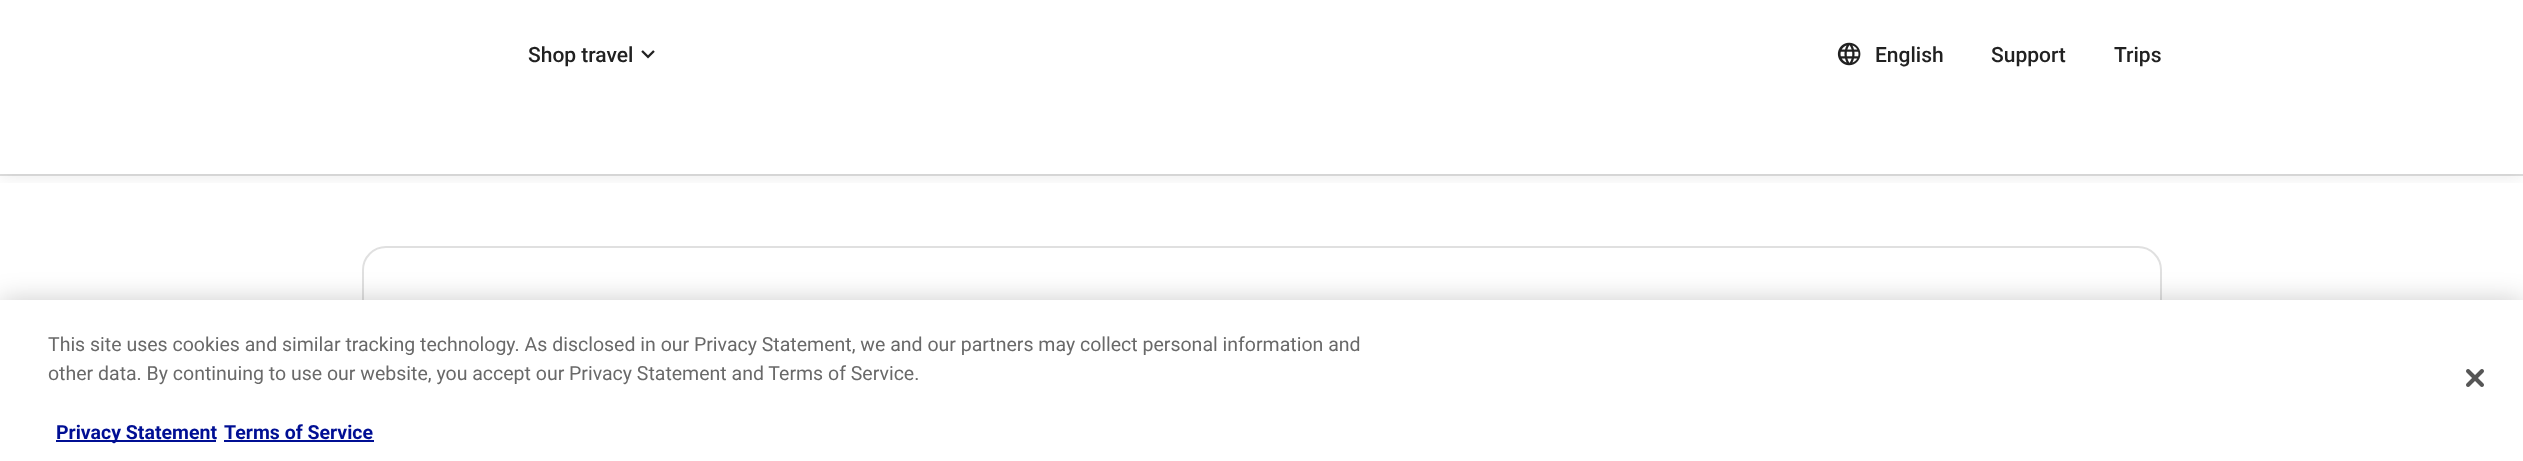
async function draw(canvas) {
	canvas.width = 2523;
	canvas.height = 461;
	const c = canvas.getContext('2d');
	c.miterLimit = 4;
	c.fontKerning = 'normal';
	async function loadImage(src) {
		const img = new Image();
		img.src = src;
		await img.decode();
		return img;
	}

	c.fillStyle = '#fff';
	c.fillRect(0, 0, 2523, 461);
	c.fillStyle = '#e0e0e0';
	c.fillRect(0, 174, 2523, 2);
	c.save();
	c.beginPath();
	c.rect(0, 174, 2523, 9);
	c.clip();
	c.fillStyle = '#00000014';
	c.filter = 'blur(9px)';
	c.beginPath();
	c.rect(0, 3, 2523, 174);
	c.fill();
	c.filter = 'none';
	c.restore();
	c.font = '500 21px Roboto';
	c.fillStyle = '#212121';
	c.fillText('Shop travel', 528, 62);
	c.drawImage(await loadImage('img1.png'), 641, 50, 14, 9);
	c.drawImage(await loadImage('img2.png'), 1837, 42, 24, 24);
	for (const [text, x, y] of [
		['English', 1875, 62],
		['Support', 1991, 62],
		['Trips', 2114, 62],
	]) {
		c.fillText(text, x, y);
	}
	c.beginPath();
	c.roundRect(363, 247, 1798, 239, 23);
	c.strokeStyle = '#e0e0e0';
	c.lineWidth = 2;
	c.stroke();
	c.fillStyle = '#00000033';
	c.filter = 'blur(13.5px)';
	c.beginPath();
	c.rect(0, 300, 2523, 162);
	c.fill();
	c.filter = 'none';
	c.fillStyle = '#fff';
	c.fillRect(0, 300, 2523, 161);
	c.font = '19.5px Roboto';
	c.fillStyle = '#696969';
	for (const [text, x, y] of [
		['This site uses cookies and similar tracking technology. As disclosed in our Privacy Statement, we and our partners may collect personal information and', 48, 351],
		['other data. By continuing to use our website, you accept our', 48, 380],
		['Privacy Statement and Terms of Service.', 569, 380],
	]) {
		c.fillText(text, x, y);
	}
	c.fillStyle = '#000f94';
	c.fillRect(56, 440, 160, 2);
	c.font = 'bold 19.5px Roboto';
	c.fillText('Privacy Statement', 56, 439);
	c.fillText('Terms of Service', 224, 439);
	c.fillRect(224, 440, 150, 2);
	c.drawImage(await loadImage('img3.png'), 2466, 369, 18, 18);
}

draw(document.querySelector('canvas'));
